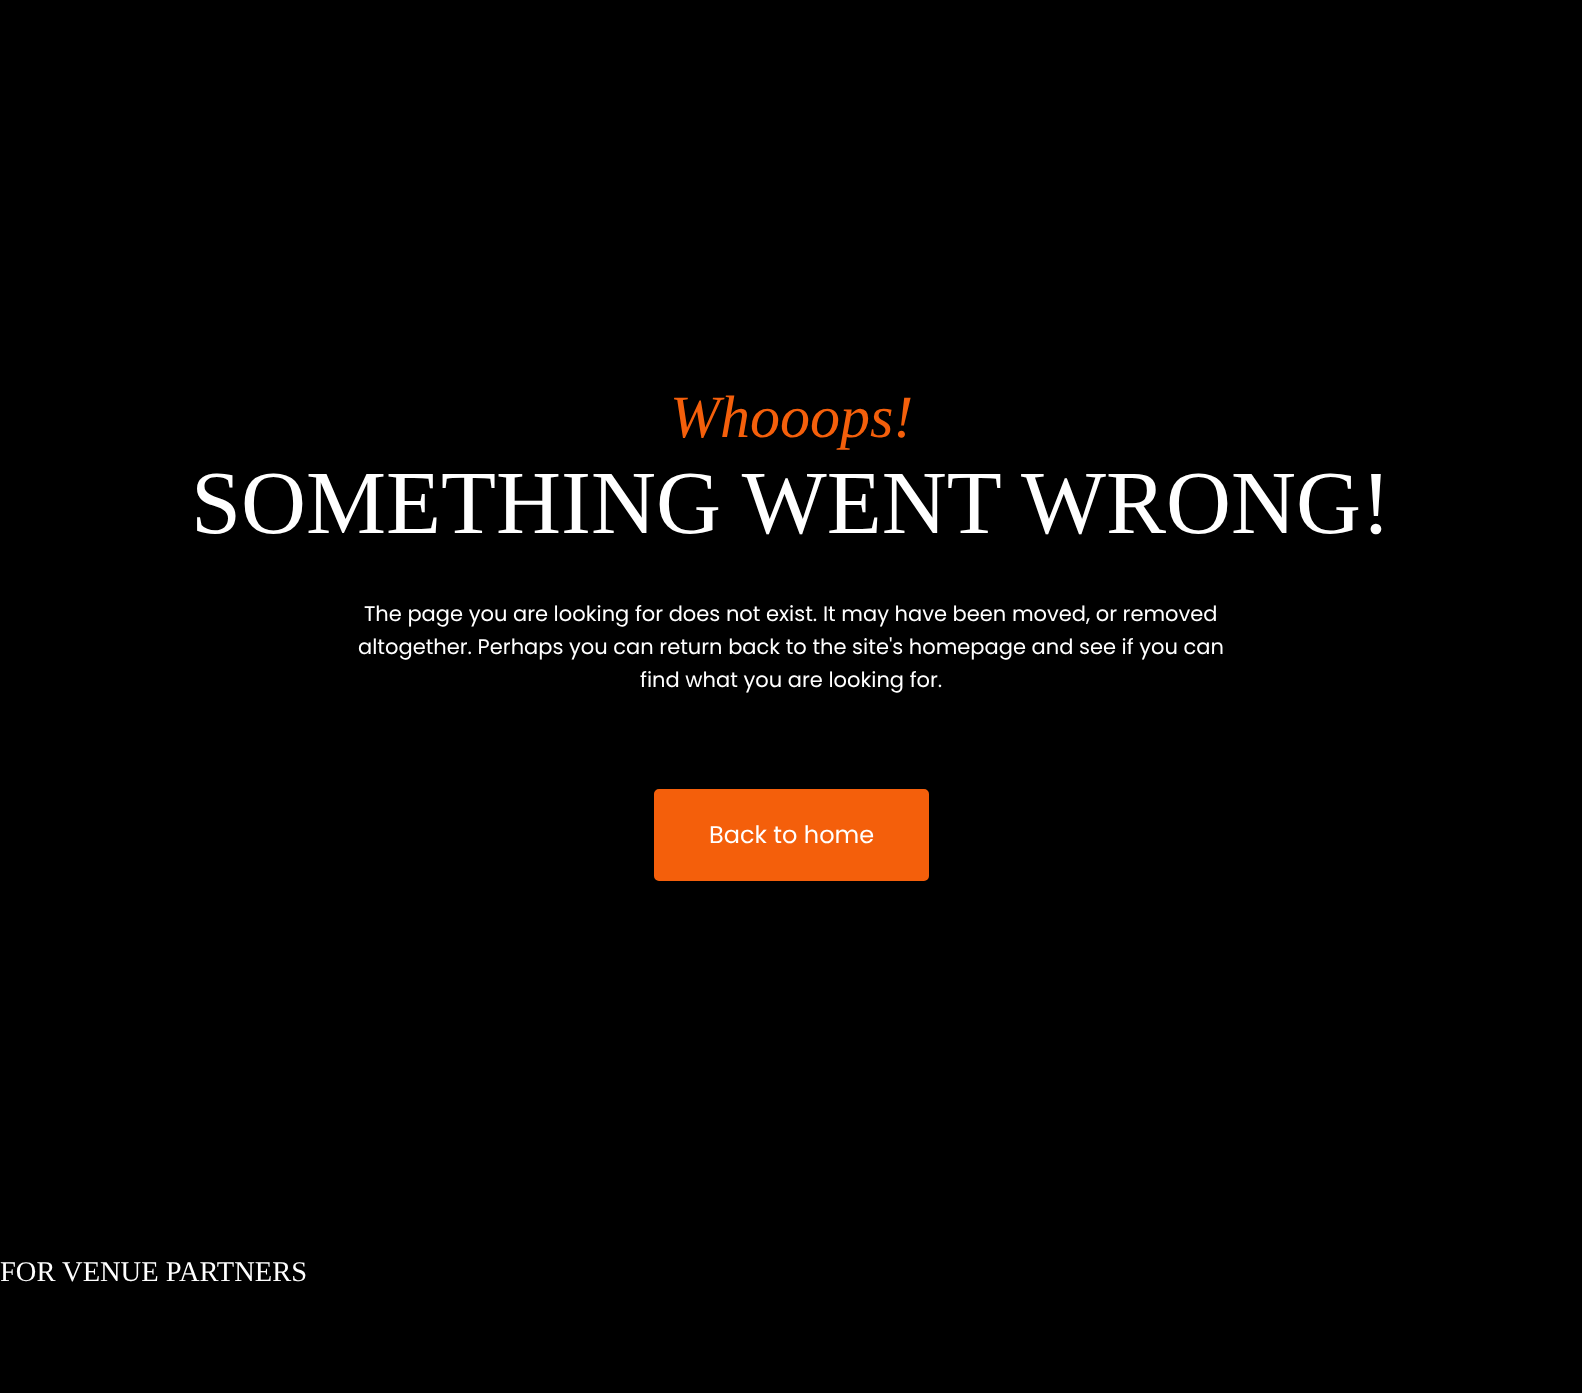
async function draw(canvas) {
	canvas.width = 1582;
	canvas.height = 1393;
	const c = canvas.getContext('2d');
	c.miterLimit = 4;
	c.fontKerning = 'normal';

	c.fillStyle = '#000';
	c.fillRect(0, 0, 1582, 1393);
	c.font = 'italic 60px Liberation Serif';
	c.fillStyle = '#f45f0b';
	c.fillText('Whooops!', 670, 437);
	c.font = '90px Liberation Serif';
	c.fillStyle = '#fff';
	c.fillText('SOMETHING WENT WRONG!', 191, 533);
	c.font = '21px Poppins';
	for (const [text, x, y] of [
		['The page you are looking for does not exist. It may have been moved, or removed', 364, 621],
		['altogether. Perhaps you can return back to the site\'s homepage and see if you can', 358, 654],
		['find what you are looking for.', 640, 687],
	]) {
		c.fillText(text, x, y);
	}
	c.fillStyle = '#f45f0b';
	c.beginPath();
	c.roundRect(655.5, 790.5, 272, 89, 3.5);
	c.fill();
	c.strokeStyle = '#f45f0b';
	c.lineWidth = 3;
	c.stroke();
	c.font = '24px Poppins';
	c.fillStyle = '#fff';
	c.fillText('Back to home', 709, 843);
	c.font = '28.5px Liberation Serif';
	c.fillText('FOR VENUE PARTNERS', 0, 1281);
}

draw(document.querySelector('canvas'));
